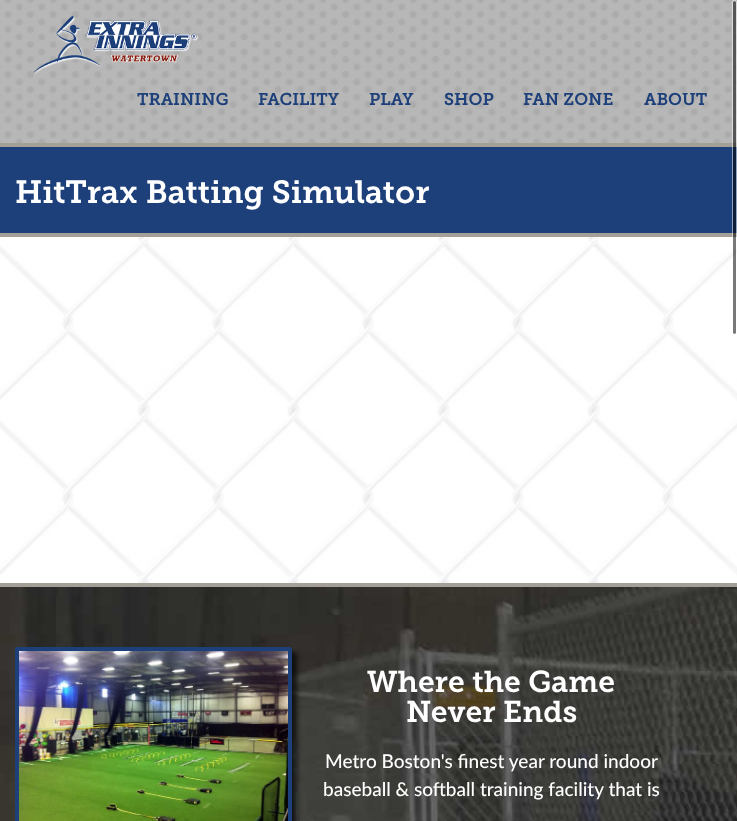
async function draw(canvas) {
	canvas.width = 737;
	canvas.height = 821;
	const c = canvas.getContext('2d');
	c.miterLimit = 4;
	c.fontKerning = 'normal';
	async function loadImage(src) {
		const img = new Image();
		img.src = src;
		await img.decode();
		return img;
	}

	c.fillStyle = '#fff';
	c.fillRect(0, 0, 737, 821);
	c.drawImage(await loadImage('img1.png'), 0, 0, 737, 143);
	c.fillStyle = '#a49f97';
	c.fillRect(0, 143, 737, 4);
	c.drawImage(await loadImage('img2.png'), 33, 15, 166, 60);
	c.font = '600 17px "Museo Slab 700"';
	c.fillStyle = '#1d407a';
	for (const [text, x, y] of [
		['TRAINING', 137, 105],
		['FACILITY', 258, 105],
		['PLAY', 369, 105],
		['SHOP', 444, 105],
		['FAN ZONE', 523, 105],
		['ABOUT', 644, 105],
	]) {
		c.fillText(text, x, y);
	}
	c.fillRect(0, 147, 737, 86);
	c.fillStyle = '#a49f97';
	c.fillRect(0, 233, 737, 4);
	c.drawImage(await loadImage('img3.png'), 0, 237, 737, 346);
	c.fillStyle = '#00000087';
	c.beginPath();
	c.roundRect(733, 1, 3, 333, 1.5);
	c.fill();
	c.beginPath();
	c.roundRect(732.5, 0.5, 4, 334, 2);
	c.strokeStyle = '#ffffff87';
	c.stroke();
	c.font = '600 32px "Museo Slab 700"';
	c.fillStyle = '#fff';
	c.fillText('HitTrax Batting Simulator', 15, 203);
	c.fillStyle = '#a49f97';
	c.fillRect(0, 583, 737, 4);
	c.drawImage(await loadImage('img4.png'), 0, 587, 737, 234);
	c.fillStyle = '#000000b3';
	c.filter = 'blur(2.5px)';
	c.beginPath();
	c.roundRect(20, 652, 277, 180, 3);
	c.fill();
	c.filter = 'none';
	c.beginPath();
	c.roundRect(17, 649, 273, 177, 1);
	c.strokeStyle = '#1d407a';
	c.lineWidth = 4;
	c.stroke();
	c.drawImage(await loadImage('img5.png'), 19, 651, 269, 170);
	c.font = '600 30px "Museo Slab 700"';
	c.fillStyle = '#fff';
	c.fillText('Where the Game', 367, 692);
	c.fillText('Never Ends', 406, 722);
	c.font = '500 19px Lato';
	c.fillText('Metro Boston\'s finest year round indoor', 325, 768);
	c.fillText('baseball & softball training facility that is', 323, 796);
}

draw(document.querySelector('canvas'));
